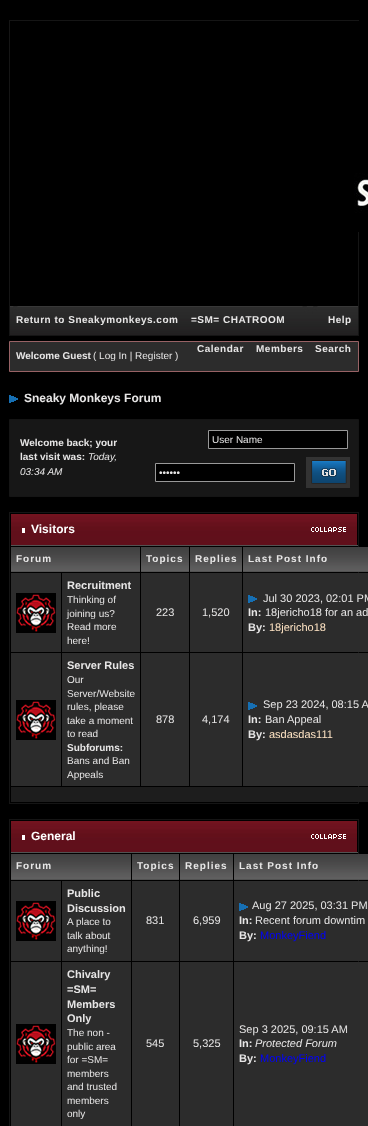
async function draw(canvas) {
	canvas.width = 368;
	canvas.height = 1126;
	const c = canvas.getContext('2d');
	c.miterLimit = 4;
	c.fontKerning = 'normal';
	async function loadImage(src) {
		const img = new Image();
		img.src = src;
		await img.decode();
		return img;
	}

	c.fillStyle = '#000';
	c.fillRect(0, 0, 368, 1126);
	c.strokeStyle = '#151515';
	c.strokeRect(9.5, 20.5, 349, 315);
	c.drawImage(await loadImage('img1.png'), 354, 21, 14, 211);
	c.drawImage(await loadImage('img2.png'), 10, 306, 348, 29);
	c.letterSpacing = '0.5px';
	c.font = 'bold 10px Liberation Sans';
	c.fillStyle = '#e7e6e6';
	for (const [text, x, y] of [
		['Return to Sneakymonkeys.com', 16, 323],
		['=SM= CHATROOM', 191, 323],
		['Help', 328, 323],
	]) {
		c.fillText(text, x, y);
	}
	c.fillStyle = '#2c2c2c';
	c.beginPath();
	c.rect(9.5, 341.5, 349, 30);
	c.fill();
	c.strokeStyle = '#986265';
	c.stroke();
	c.fillStyle = '#e7e6e6';
	for (const [text, x, y] of [
		['Calendar', 197, 352],
		['Members', 256, 352],
		['Search', 315, 352],
	]) {
		c.fillText(text, x, y);
	}
	c.letterSpacing = '0px';
	c.fillText('Welcome Guest', 16, 359);
	c.font = '10px Liberation Sans';
	c.fillText('( Log In | Register )', 93, 359);
	c.drawImage(await loadImage('img3.png'), 9, 395, 9, 8);
	c.font = 'bold 12px Liberation Sans';
	c.fillText('Sneaky Monkeys Forum', 24, 402);
	c.fillStyle = '#171717';
	c.beginPath();
	c.rect(9.5, 419.5, 349, 77);
	c.fill();
	c.strokeStyle = '#151515';
	c.stroke();
	c.font = 'bold 10px Liberation Sans';
	c.fillStyle = '#e7e6e6';
	c.fillText('Welcome back; your', 20, 446);
	c.fillText('last visit was:', 20, 460);
	c.font = 'italic 10px Liberation Sans';
	c.fillText('Today,', 88, 460);
	c.fillText('03:34 AM', 20, 475);
	c.fillStyle = '#000';
	c.beginPath();
	c.rect(208.5, 430.5, 139, 18);
	c.fill();
	c.strokeStyle = '#999';
	c.stroke();
	c.font = '10px Liberation Sans';
	c.fillStyle = '#e7e6e6';
	c.fillText('User Name', 212, 443);
	c.fillStyle = '#000';
	c.beginPath();
	c.rect(155.5, 463.5, 139, 18);
	c.fill();
	c.stroke();
	c.fillStyle = '#e7e6e6';
	c.fillText('••••••', 159, 476);
	c.drawImage(await loadImage('img4.png'), 306, 457, 44, 31);
	c.strokeStyle = '#151515';
	c.strokeRect(9.5, 512.5, 349, 291);
	c.drawImage(await loadImage('img5.png'), 11, 514, 346, 31);
	for (const [x, y, w, h, color] of [
		[10, 545, 348, 1, '#525252'],
		[10, 545, 1, 1, '#000'],
		[22, 528, 3, 5, '#fff'],
	]) {
		c.fillStyle = color;
		c.fillRect(x, y, w, h);
	}
	c.font = 'bold 12px Liberation Sans';
	c.fillText('Visitors', 31, 533);
	c.drawImage(await loadImage('img6.png'), 311, 527, 35, 5);
	c.drawImage(await loadImage('img7.png'), 11, 547, 129, 24);
	c.fillStyle = '#525252';
	c.fillRect(11, 571, 129, 1);
	c.letterSpacing = '1px';
	c.font = 'bold 10px Liberation Sans';
	c.fillStyle = '#e7e6e6';
	c.fillText('Forum', 16, 562);
	c.drawImage(await loadImage('img8.png'), 141, 547, 48, 24);
	c.fillStyle = '#525252';
	c.fillRect(141, 571, 48, 1);
	c.fillStyle = '#e7e6e6';
	c.fillText('Topics', 146, 562);
	c.drawImage(await loadImage('img9.png'), 190, 547, 52, 24);
	c.fillStyle = '#525252';
	c.fillRect(190, 571, 52, 1);
	c.fillStyle = '#e7e6e6';
	c.fillText('Replies', 195, 562);
	c.drawImage(await loadImage('img10.png'), 243, 547, 125, 24);
	c.fillStyle = '#525252';
	c.fillRect(243, 571, 125, 1);
	c.fillStyle = '#e7e6e6';
	c.fillText('Last Post Info', 248, 562);
	c.fillStyle = '#2c2c2c';
	c.fillRect(11, 573, 50, 79);
	c.drawImage(await loadImage('img11.png'), 16, 593, 40, 40);
	c.fillRect(62, 573, 78, 79);
	c.letterSpacing = '0px';
	c.font = 'bold 11px Liberation Sans';
	c.fillStyle = '#e7e6e6';
	c.fillText('Recruitment', 67, 589);
	c.font = '10px Liberation Sans';
	for (const [text, x, y] of [
		['Thinking of', 67, 603],
		['joining us?', 67, 617],
		['Read more', 67, 630],
		['here!', 67, 644],
	]) {
		c.fillText(text, x, y);
	}
	c.fillStyle = '#2c2c2c';
	c.fillRect(141, 573, 48, 79);
	c.font = '11px Liberation Sans';
	c.fillStyle = '#e7e6e6';
	c.fillText('223', 156, 616);
	c.fillStyle = '#2c2c2c';
	c.fillRect(190, 573, 52, 79);
	c.fillStyle = '#e7e6e6';
	c.fillText('1,520', 202, 616);
	c.fillStyle = '#2c2c2c';
	c.fillRect(243, 573, 125, 79);
	c.drawImage(await loadImage('img12.png'), 248, 595, 9, 8);
	c.fillStyle = '#e7e6e6';
	c.fillText('Jul 30 2023, 02:01 PM', 263, 602);
	c.font = 'bold 11px Liberation Sans';
	c.fillText('In:', 248, 616);
	c.font = '11px Liberation Sans';
	c.fillText('18jericho18 for an ad', 265, 616);
	c.font = 'bold 11px Liberation Sans';
	c.fillText('By:', 248, 631);
	c.font = '11px Liberation Sans';
	c.fillStyle = '#ffe4c4';
	c.fillText('18jericho18', 269, 631);
	c.fillStyle = '#2c2c2c';
	c.fillRect(11, 653, 50, 133);
	c.drawImage(await loadImage('img11.png'), 16, 700, 40, 40);
	c.fillRect(62, 653, 78, 133);
	c.font = 'bold 11px Liberation Sans';
	c.fillStyle = '#e7e6e6';
	c.fillText('Server Rules', 67, 669);
	c.font = '10px Liberation Sans';
	for (const [text, x, y] of [
		['Our', 67, 683],
		['Server/Website', 67, 697],
		['rules, please', 67, 710],
		['take a moment', 67, 724],
		['to read', 67, 737],
	]) {
		c.fillText(text, x, y);
	}
	c.font = 'bold 10px Liberation Sans';
	c.fillText('Subforums:', 67, 751);
	c.font = '10px Liberation Sans';
	c.fillText('Bans and Ban', 67, 764);
	c.fillText('Appeals', 67, 778);
	c.fillStyle = '#2c2c2c';
	c.fillRect(141, 653, 48, 133);
	c.font = '11px Liberation Sans';
	c.fillStyle = '#e7e6e6';
	c.fillText('878', 156, 723);
	c.fillStyle = '#2c2c2c';
	c.fillRect(190, 653, 52, 133);
	c.fillStyle = '#e7e6e6';
	c.fillText('4,174', 202, 723);
	c.fillStyle = '#2c2c2c';
	c.fillRect(243, 653, 125, 133);
	c.drawImage(await loadImage('img12.png'), 248, 702, 9, 8);
	c.fillStyle = '#e7e6e6';
	c.fillText('Sep 23 2024, 08:15 A', 263, 708);
	c.font = 'bold 11px Liberation Sans';
	c.fillText('In:', 248, 723);
	c.font = '11px Liberation Sans';
	c.fillText('Ban Appeal', 265, 723);
	c.font = 'bold 11px Liberation Sans';
	c.fillText('By:', 248, 738);
	c.font = '11px Liberation Sans';
	c.fillStyle = '#ffe4c4';
	c.fillText('asdasdas111', 269, 738);
	c.fillStyle = '#1d1d1d';
	c.fillRect(11, 787, 357, 15);
	c.strokeRect(9.5, 819.5, 349, 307);
	c.drawImage(await loadImage('img5.png'), 11, 821, 346, 31);
	for (const [x, y, w, h, color] of [
		[10, 852, 348, 1, '#525252'],
		[10, 852, 1, 1, '#000'],
		[22, 835, 3, 5, '#fff'],
	]) {
		c.fillStyle = color;
		c.fillRect(x, y, w, h);
	}
	c.font = 'bold 12px Liberation Sans';
	c.fillText('General', 31, 840);
	c.drawImage(await loadImage('img6.png'), 311, 834, 35, 5);
	c.drawImage(await loadImage('img13.png'), 11, 854, 120, 25);
	c.fillStyle = '#525252';
	c.fillRect(11, 879, 120, 1);
	c.letterSpacing = '1px';
	c.font = 'bold 10px Liberation Sans';
	c.fillStyle = '#e7e6e6';
	c.fillText('Forum', 16, 869);
	c.drawImage(await loadImage('img14.png'), 132, 854, 47, 25);
	c.fillStyle = '#525252';
	c.fillRect(132, 879, 47, 1);
	c.fillStyle = '#e7e6e6';
	c.fillText('Topics', 137, 869);
	c.drawImage(await loadImage('img15.png'), 180, 854, 53, 25);
	c.fillStyle = '#525252';
	c.fillRect(180, 879, 53, 1);
	c.fillStyle = '#e7e6e6';
	c.fillText('Replies', 185, 869);
	c.drawImage(await loadImage('img16.png'), 234, 854, 134, 25);
	c.fillStyle = '#525252';
	c.fillRect(234, 879, 134, 1);
	c.fillStyle = '#e7e6e6';
	c.fillText('Last Post Info', 239, 869);
	c.fillStyle = '#2c2c2c';
	c.fillRect(11, 881, 50, 80);
	c.drawImage(await loadImage('img11.png'), 16, 901, 40, 40);
	c.fillRect(62, 881, 69, 80);
	c.letterSpacing = '0px';
	c.font = 'bold 11px Liberation Sans';
	c.fillStyle = '#e7e6e6';
	c.fillText('Public', 67, 897);
	c.fillText('Discussion', 67, 912);
	c.font = '10px Liberation Sans';
	for (const [text, x, y] of [
		['A place to', 67, 925],
		['talk about', 67, 939],
		['anything!', 67, 952],
	]) {
		c.fillText(text, x, y);
	}
	c.fillStyle = '#2c2c2c';
	c.fillRect(132, 881, 47, 80);
	c.font = '11px Liberation Sans';
	c.fillStyle = '#e7e6e6';
	c.fillText('831', 146, 924);
	c.fillStyle = '#2c2c2c';
	c.fillRect(180, 881, 53, 80);
	c.fillStyle = '#e7e6e6';
	c.fillText('6,959', 193, 924);
	c.fillStyle = '#2c2c2c';
	c.fillRect(234, 881, 134, 80);
	c.drawImage(await loadImage('img12.png'), 239, 903, 9, 8);
	c.fillStyle = '#e7e6e6';
	c.fillText('Aug 27 2025, 03:31 PM', 252, 909);
	c.font = 'bold 11px Liberation Sans';
	c.fillText('In:', 239, 924);
	c.font = '11px Liberation Sans';
	c.fillText('Recent forum downtim', 255, 924);
	c.font = 'bold 11px Liberation Sans';
	c.fillText('By:', 239, 939);
	c.font = '11px Liberation Sans';
	c.fillStyle = '#00f';
	c.fillText('MonkeyFiend', 260, 939);
	c.fillStyle = '#2c2c2c';
	c.fillRect(11, 962, 50, 164);
	c.drawImage(await loadImage('img11.png'), 16, 1024, 40, 40);
	c.fillRect(62, 962, 69, 164);
	c.font = 'bold 11px Liberation Sans';
	c.fillStyle = '#e7e6e6';
	for (const [text, x, y] of [
		['Chivalry', 67, 978],
		['=SM=', 67, 993],
		['Members', 67, 1008],
		['Only', 67, 1022],
	]) {
		c.fillText(text, x, y);
	}
	c.font = '10px Liberation Sans';
	for (const [text, x, y] of [
		['The non -', 67, 1036],
		['public area', 67, 1050],
		['for =SM=', 67, 1063],
		['members', 67, 1077],
		['and trusted', 67, 1090],
		['members', 67, 1104],
		['only', 67, 1117],
	]) {
		c.fillText(text, x, y);
	}
	c.fillStyle = '#2c2c2c';
	c.fillRect(132, 962, 47, 164);
	c.font = '11px Liberation Sans';
	c.fillStyle = '#e7e6e6';
	c.fillText('545', 146, 1047);
	c.fillStyle = '#2c2c2c';
	c.fillRect(180, 962, 53, 164);
	c.fillStyle = '#e7e6e6';
	c.fillText('5,325', 193, 1047);
	c.fillStyle = '#2c2c2c';
	c.fillRect(234, 962, 134, 164);
	c.fillStyle = '#e7e6e6';
	c.fillText('Sep 3 2025, 09:15 AM', 239, 1033);
	c.font = 'bold 11px Liberation Sans';
	c.fillText('In:', 239, 1047);
	c.font = 'italic 11px Liberation Sans';
	c.fillText('Protected Forum', 255, 1047);
	c.font = 'bold 11px Liberation Sans';
	c.fillText('By:', 239, 1062);
	c.font = '11px Liberation Sans';
	c.fillStyle = '#00f';
	c.fillText('MonkeyFiend', 260, 1062);
}

draw(document.querySelector('canvas'));
